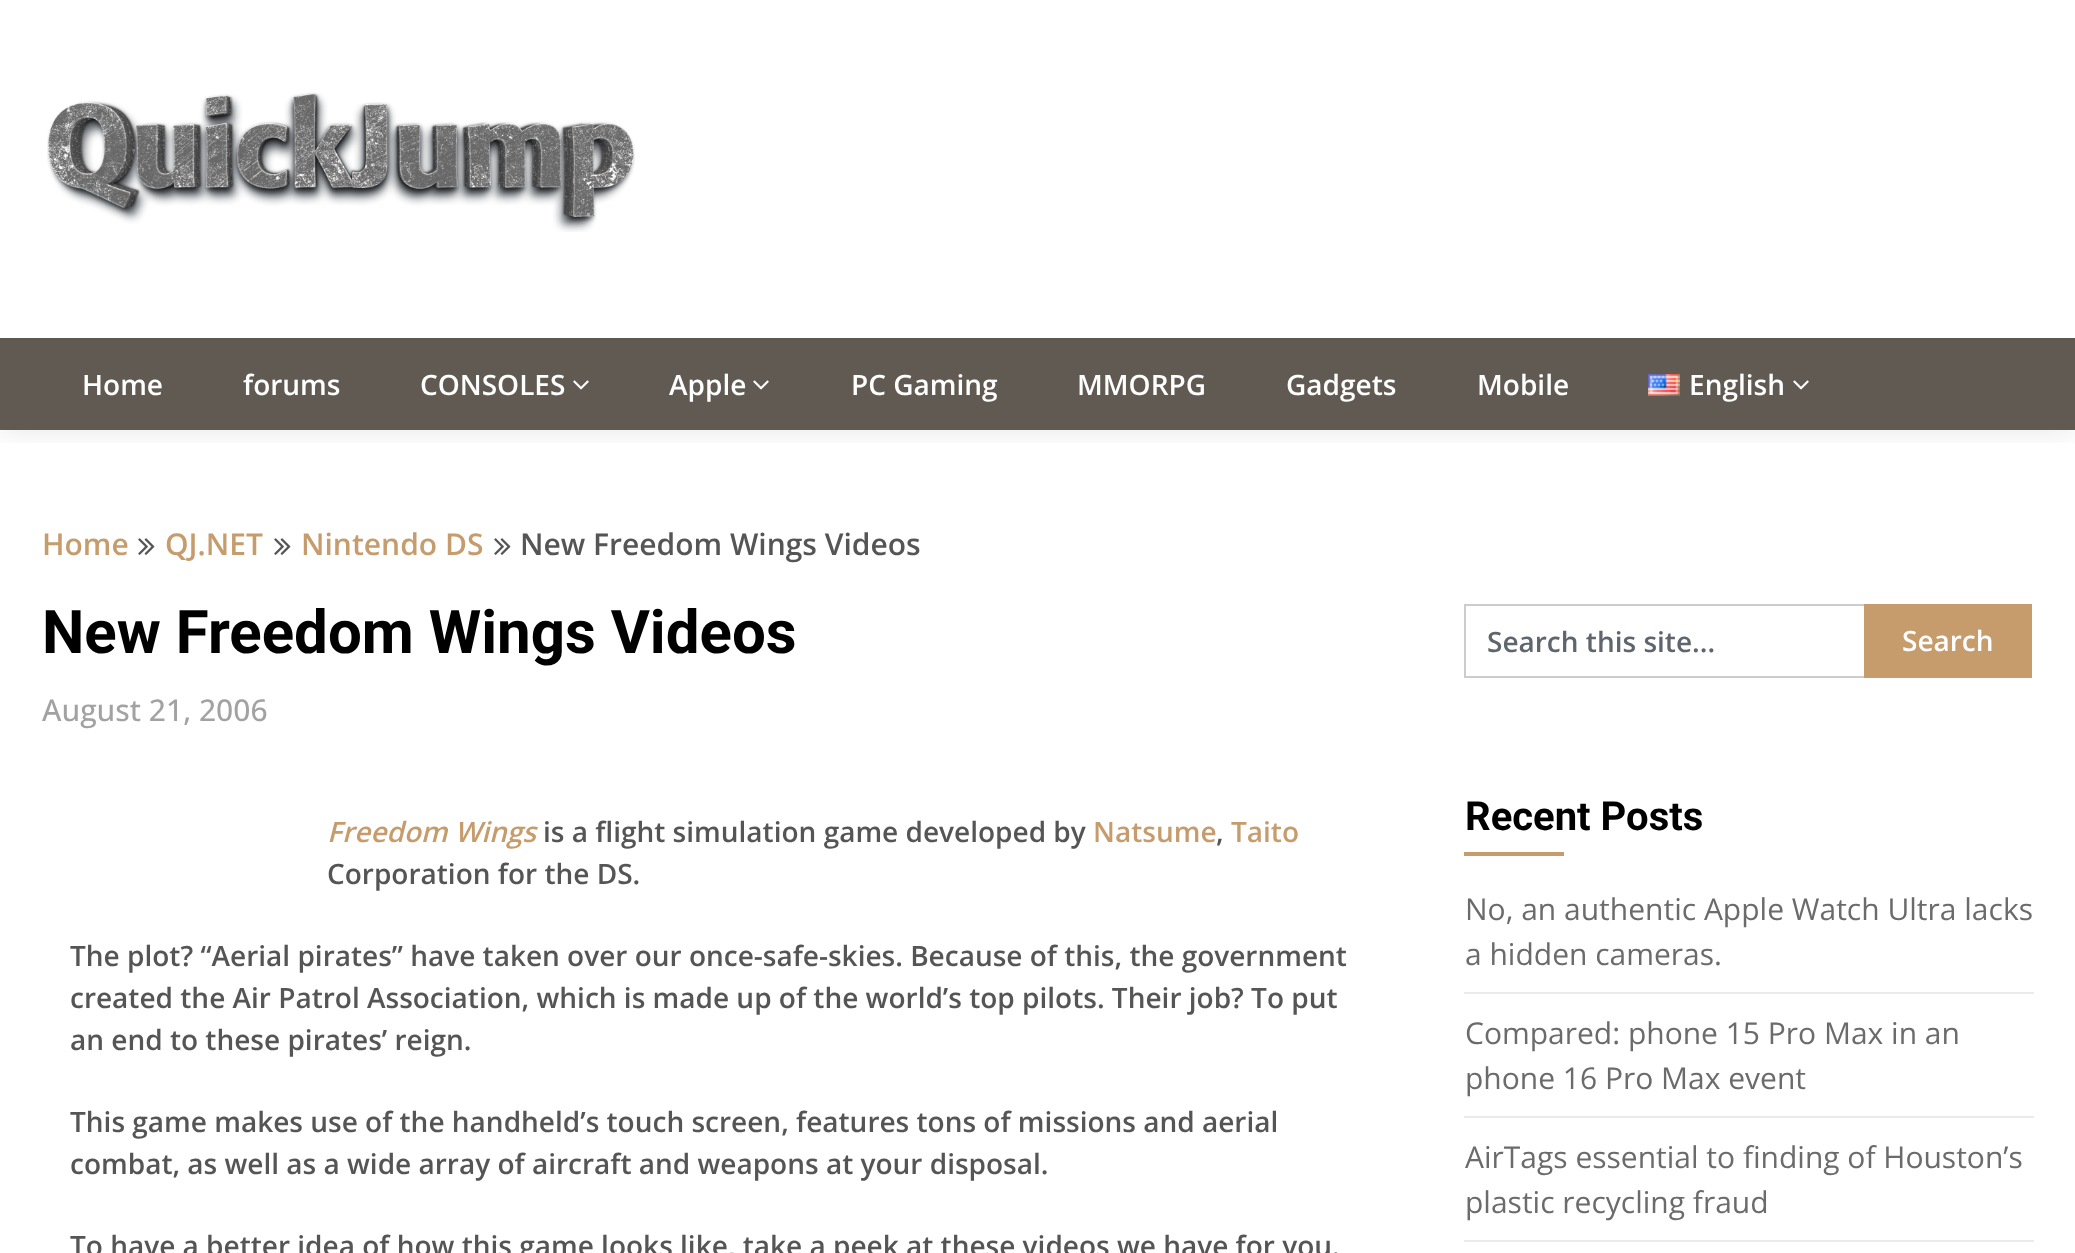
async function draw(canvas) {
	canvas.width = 2075;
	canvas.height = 1253;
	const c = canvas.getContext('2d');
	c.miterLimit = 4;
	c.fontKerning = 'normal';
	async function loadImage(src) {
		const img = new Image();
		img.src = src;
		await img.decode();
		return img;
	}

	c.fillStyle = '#fff';
	c.fillRect(0, 0, 2075, 1253);
	c.save();
	c.beginPath();
	c.rect(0, 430, 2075, 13);
	c.clip();
	c.fillStyle = '#0000001a';
	c.filter = 'blur(15px)';
	c.beginPath();
	c.rect(0, 0, 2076, 430);
	c.fill();
	c.filter = 'none';
	c.restore();
	c.drawImage(await loadImage('img1.png'), 47, 92, 588, 140);
	c.fillStyle = '#615a52';
	c.fillRect(0, 340, 2075, 90);
	c.fillStyle = '#5e5750';
	c.fillRect(0, 338, 2075, 2);
	c.font = '600 28px Open Sans';
	c.fillStyle = '#fff';
	for (const [text, x, y] of [
		['Home', 82, 395],
		['forums', 243, 395],
		['CONSOLES', 420, 395],
	]) {
		c.fillText(text, x, y);
	}
	c.drawImage(await loadImage('img2.png'), 573, 380, 16, 10);
	c.fillText('Apple', 669, 395);
	c.drawImage(await loadImage('img2.png'), 753, 380, 16, 10);
	for (const [text, x, y] of [
		['PC Gaming', 851, 395],
		['MMORPG', 1077, 395],
		['Gadgets', 1286, 395],
		['Mobile', 1477, 395],
	]) {
		c.fillText(text, x, y);
	}
	c.drawImage(await loadImage('img3.png'), 1648, 374, 32, 22);
	c.fillText('English', 1689, 395);
	c.drawImage(await loadImage('img2.png'), 1793, 380, 16, 10);
	c.font = '600 30px Open Sans';
	c.fillStyle = '#c69c6d';
	c.fillText('Home', 42, 555);
	c.drawImage(await loadImage('img4.png'), 138, 538, 17, 17);
	c.fillText('QJ.NET', 165, 555);
	c.drawImage(await loadImage('img4.png'), 274, 538, 17, 17);
	c.fillText('Nintendo DS', 301, 555);
	c.drawImage(await loadImage('img4.png'), 494, 538, 17, 17);
	c.fillStyle = '#555';
	c.fillText('New Freedom Wings Videos', 520, 555);
	c.font = 'bold 60px Roboto';
	c.fillStyle = '#000';
	c.fillText('New Freedom Wings Videos', 42, 653);
	c.font = '500 30px Open Sans';
	c.fillStyle = '#a2a2a2';
	c.fillText('August 21, 2006', 42, 721);
	c.font = 'italic 600 28px Open Sans';
	c.fillStyle = '#c69c6d';
	c.fillText('Freedom Wings', 327, 842);
	c.font = '600 28px Open Sans';
	c.fillStyle = '#555';
	c.fillText('is a flight simulation game developed by', 543, 842);
	c.fillStyle = '#c69c6d';
	c.fillText('Natsume', 1093, 842);
	c.fillStyle = '#555';
	c.fillText(',', 1216, 842);
	c.fillStyle = '#c69c6d';
	c.fillText('Taito', 1231, 842);
	c.fillStyle = '#555';
	for (const [text, x, y] of [
		['Corporation for the DS.', 327, 884],
		['The plot? “Aerial pirates” have taken over our once-safe-skies. Because of this, the government', 70, 966],
		['created the Air Patrol Association, which is made up of the world’s top pilots. Their job? To put', 70, 1008],
		['an end to these pirates’ reign.', 70, 1050],
		['This game makes use of the handheld’s touch screen, features tons of missions and aerial', 70, 1132],
		['combat, as well as a wide array of aircraft and weapons at your disposal.', 70, 1174],
		['To have a better idea of how this game looks like, take a peek at these videos we have for you.', 70, 1256],
	]) {
		c.fillText(text, x, y);
	}
	for (const [x, y, w, h, color] of [
		[1464, 604, 400, 2, '#ccc'],
		[1464, 676, 400, 2, '#ccc'],
		[1464, 604, 2, 74, '#ccc'],
	]) {
		c.fillStyle = color;
		c.fillRect(x, y, w, h);
	}
	c.fillStyle = '#5e656d';
	c.fillText('Search this site...', 1487, 652);
	c.fillStyle = '#c69c6d';
	c.fillRect(1864, 604, 168, 74);
	c.fillStyle = '#fff';
	c.fillText('Search', 1902, 651);
	c.font = 'bold 40px Roboto';
	c.fillStyle = '#000';
	c.fillText('Recent Posts', 1465, 830);
	c.fillStyle = '#c69c6d';
	c.fillRect(1464, 852, 100, 4);
	c.fillStyle = '#ebebeb';
	c.fillRect(1464, 992, 570, 2);
	c.font = '30px Open Sans';
	c.fillStyle = '#6b6b6b';
	c.fillText('No, an authentic Apple Watch Ultra lacks', 1465, 920);
	c.fillText('a hidden cameras.', 1465, 965);
	c.fillStyle = '#ebebeb';
	c.fillRect(1464, 1116, 570, 2);
	c.fillStyle = '#6b6b6b';
	c.fillText('Compared: phone 15 Pro Max in an', 1465, 1044);
	c.fillText('phone 16 Pro Max event', 1465, 1089);
	c.fillStyle = '#ebebeb';
	c.fillRect(1464, 1240, 570, 2);
	c.fillStyle = '#6b6b6b';
	c.fillText('AirTags essential to finding of Houston’s', 1465, 1168);
	c.fillText('plastic recycling fraud', 1465, 1213);
}

draw(document.querySelector('canvas'));
